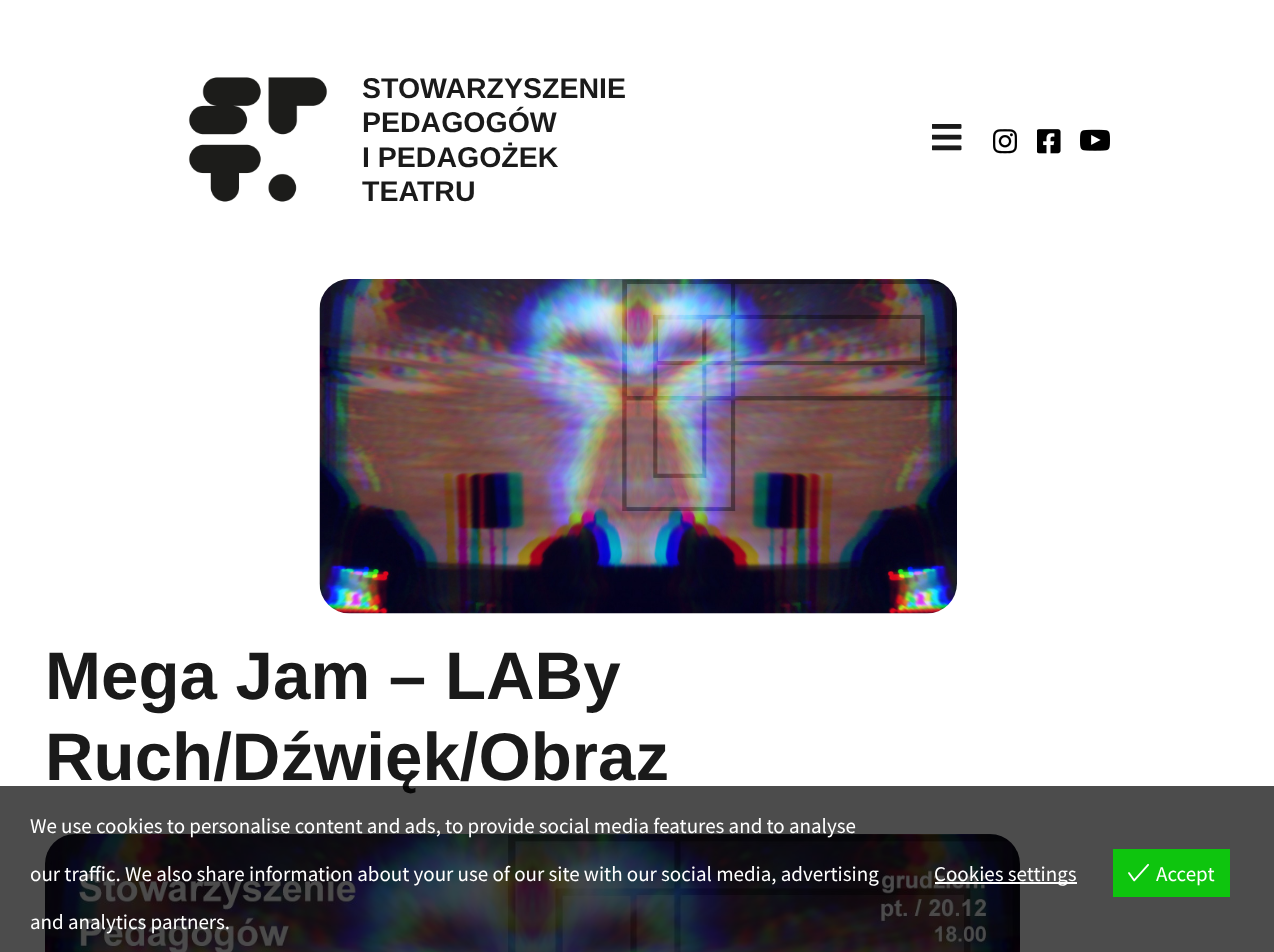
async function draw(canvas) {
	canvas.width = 1274;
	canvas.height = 952;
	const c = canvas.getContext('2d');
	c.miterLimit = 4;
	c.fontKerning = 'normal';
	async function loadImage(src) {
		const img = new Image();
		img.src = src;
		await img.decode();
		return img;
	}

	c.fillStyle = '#fff';
	c.fillRect(0, 0, 1274, 952);
	c.drawImage(await loadImage('img1.png'), 188, 77, 140, 125);
	c.font = 'bold 28.5px Liberation Sans';
	c.fillStyle = '#1a1a1a';
	for (const [text, x, y] of [
		['STOWARZYSZENIE', 362, 98],
		['PEDAGOGÓW', 362, 132],
		['I PEDAGOŻEK', 362, 167],
		['TEATRU', 362, 201],
	]) {
		c.fillText(text, x, y);
	}
	c.drawImage(await loadImage('img2.png'), 932, 124, 30, 27);
	c.drawImage(await loadImage('img3.png'), 993, 129, 24, 25);
	c.drawImage(await loadImage('img4.png'), 1037, 129, 24, 25);
	c.drawImage(await loadImage('img5.png'), 1080, 129, 30, 22);
	c.drawImage(await loadImage('img6.png'), 319, 279, 638, 335);
	c.font = 'bold 67.25px Liberation Sans';
	c.fillText('Mega Jam – LABy', 45, 699);
	c.fillText('Ruch/Dźwięk/Obraz', 45, 780);
	c.drawImage(await loadImage('img7.png'), 45, 834, 975, 118);
	c.fillStyle = '#000000b3';
	c.fillRect(0, 786, 1274, 166);
	c.font = '21px Source Sans Pro';
	c.fillStyle = '#fff';
	for (const [text, x, y] of [
		['We use cookies to personalise content and ads, to provide social media features and to analyse', 30, 833],
		['our traffic. We also share information about your use of our site with our social media, advertising', 30, 881],
		['and analytics partners.', 30, 929],
	]) {
		c.fillText(text, x, y);
	}
	c.fillRect(935, 882, 142, 2);
	c.fillText('Cookies settings', 934, 881);
	c.fillStyle = '#0ec50e';
	c.fillRect(1113, 849, 117, 48);
	c.drawImage(await loadImage('img8.png'), 1128, 863, 21, 19);
	c.fillStyle = '#fff';
	c.fillText('Accept', 1156, 881);
}

draw(document.querySelector('canvas'));
